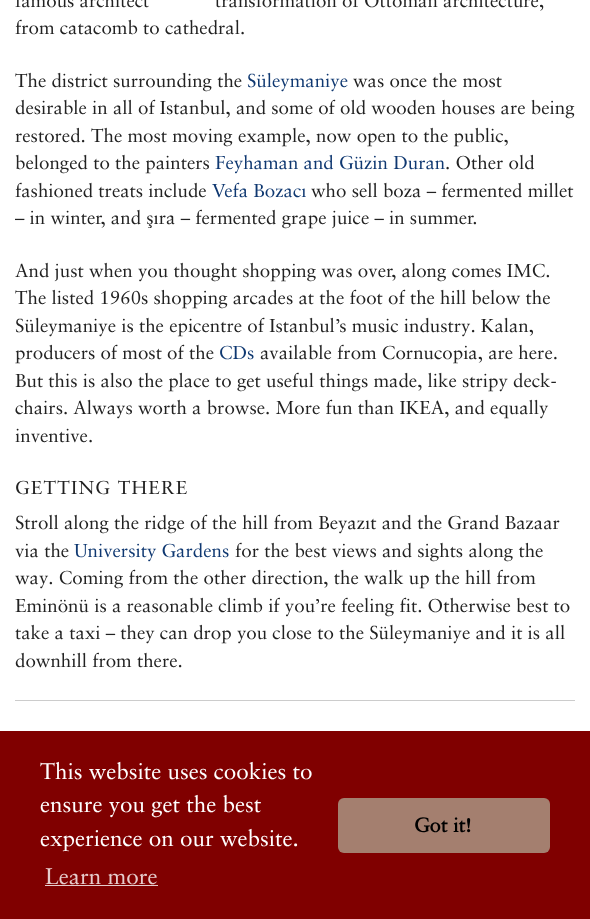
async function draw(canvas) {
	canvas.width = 590;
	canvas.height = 919;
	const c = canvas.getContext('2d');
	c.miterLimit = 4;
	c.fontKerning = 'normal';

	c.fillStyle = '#fff';
	c.fillRect(0, 0, 590, 919);
	c.font = '18.75px "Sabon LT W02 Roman"';
	c.fillStyle = '#222';
	for (const [text, x, y] of [
		['famous architect', 15, 7],
		['transformation of Ottoman architecture,', 215, 7],
		['from catacomb to cathedral.', 15, 34],
		['The district surrounding the', 15, 87],
	]) {
		c.fillText(text, x, y);
	}
	c.fillStyle = '#0f3871';
	c.fillText('Süleymaniye', 247, 87);
	c.fillStyle = '#222';
	for (const [text, x, y] of [
		['was once the most', 353, 87],
		['desirable in all of Istanbul, and some of old wooden houses are being', 15, 114],
		['restored. The most moving example, now open to the public,', 15, 142],
		['belonged to the painters', 15, 169],
	]) {
		c.fillText(text, x, y);
	}
	c.fillStyle = '#0f3871';
	c.fillText('Feyhaman and Güzin Duran', 215, 169);
	c.fillStyle = '#222';
	c.fillText('. Other old', 445, 169);
	c.fillText('fashioned treats include', 15, 197);
	c.fillStyle = '#0f3871';
	c.fillText('Vefa Bozacı', 212, 197);
	c.fillStyle = '#222';
	for (const [text, x, y] of [
		['who sell boza – fermented millet', 311, 197],
		['– in winter, and şıra – fermented grape juice – in summer.', 15, 224],
		['And just when you thought shopping was over, along comes IMC.', 15, 277],
		['The listed 1960s shopping arcades at the foot of the hill below the', 15, 304],
		['Süleymaniye is the epicentre of Istanbul’s music industry. Kalan,', 15, 332],
		['producers of most of the', 15, 359],
	]) {
		c.fillText(text, x, y);
	}
	c.fillStyle = '#0f3871';
	c.fillText('CDs', 219, 359);
	c.fillStyle = '#222';
	for (const [text, x, y] of [
		['available from Cornucopia, are here.', 260, 359],
		['But this is also the place to get useful things made, like stripy deck-', 15, 387],
		['chairs. Always worth a browse. More fun than IKEA, and equally', 15, 414],
		['inventive.', 15, 442],
	]) {
		c.fillText(text, x, y);
	}
	c.letterSpacing = '1.25px';
	c.fillText('GETTING THERE', 15, 494);
	c.letterSpacing = '0px';
	c.fillText('Stroll along the ridge of the hill from Beyazıt and the Grand Bazaar', 15, 529);
	c.fillText('via the', 15, 557);
	c.fillStyle = '#0f3871';
	c.fillText('University Gardens', 74, 557);
	c.fillStyle = '#222';
	for (const [text, x, y] of [
		['for the best views and sights along the', 235, 557],
		['way. Coming from the other direction, the walk up the hill from', 15, 584],
		['Eminönü is a reasonable climb if you’re feeling fit. Otherwise best to', 15, 612],
		['take a taxi – they can drop you close to the Süleymaniye and it is all', 15, 639],
		['downhill from there.', 15, 667],
	]) {
		c.fillText(text, x, y);
	}
	c.fillStyle = '#ccc';
	c.fillRect(15, 700, 560, 1);
	c.fillStyle = '#800000';
	c.fillRect(0, 731, 590, 188);
	c.font = '22.5px "Sabon LT W02 Roman"';
	c.fillStyle = '#fff';
	for (const [text, x, y] of [
		['This website uses cookies to', 40, 779],
		['ensure you get the best', 40, 812],
		['experience on our website.', 40, 846],
	]) {
		c.fillText(text, x, y);
	}
	c.fillStyle = '#e6cccc';
	c.fillText('Learn more', 45, 884);
	c.fillRect(45, 885, 113, 1);
	c.fillStyle = '#a47f6f';
	c.beginPath();
	c.roundRect(338, 798, 212, 55, 6);
	c.fill();
	c.font = 'bold 20px "Sabon LT W02 Roman"';
	c.fillStyle = '#000';
	c.fillText('Got it!', 414, 832);
}

draw(document.querySelector('canvas'));
